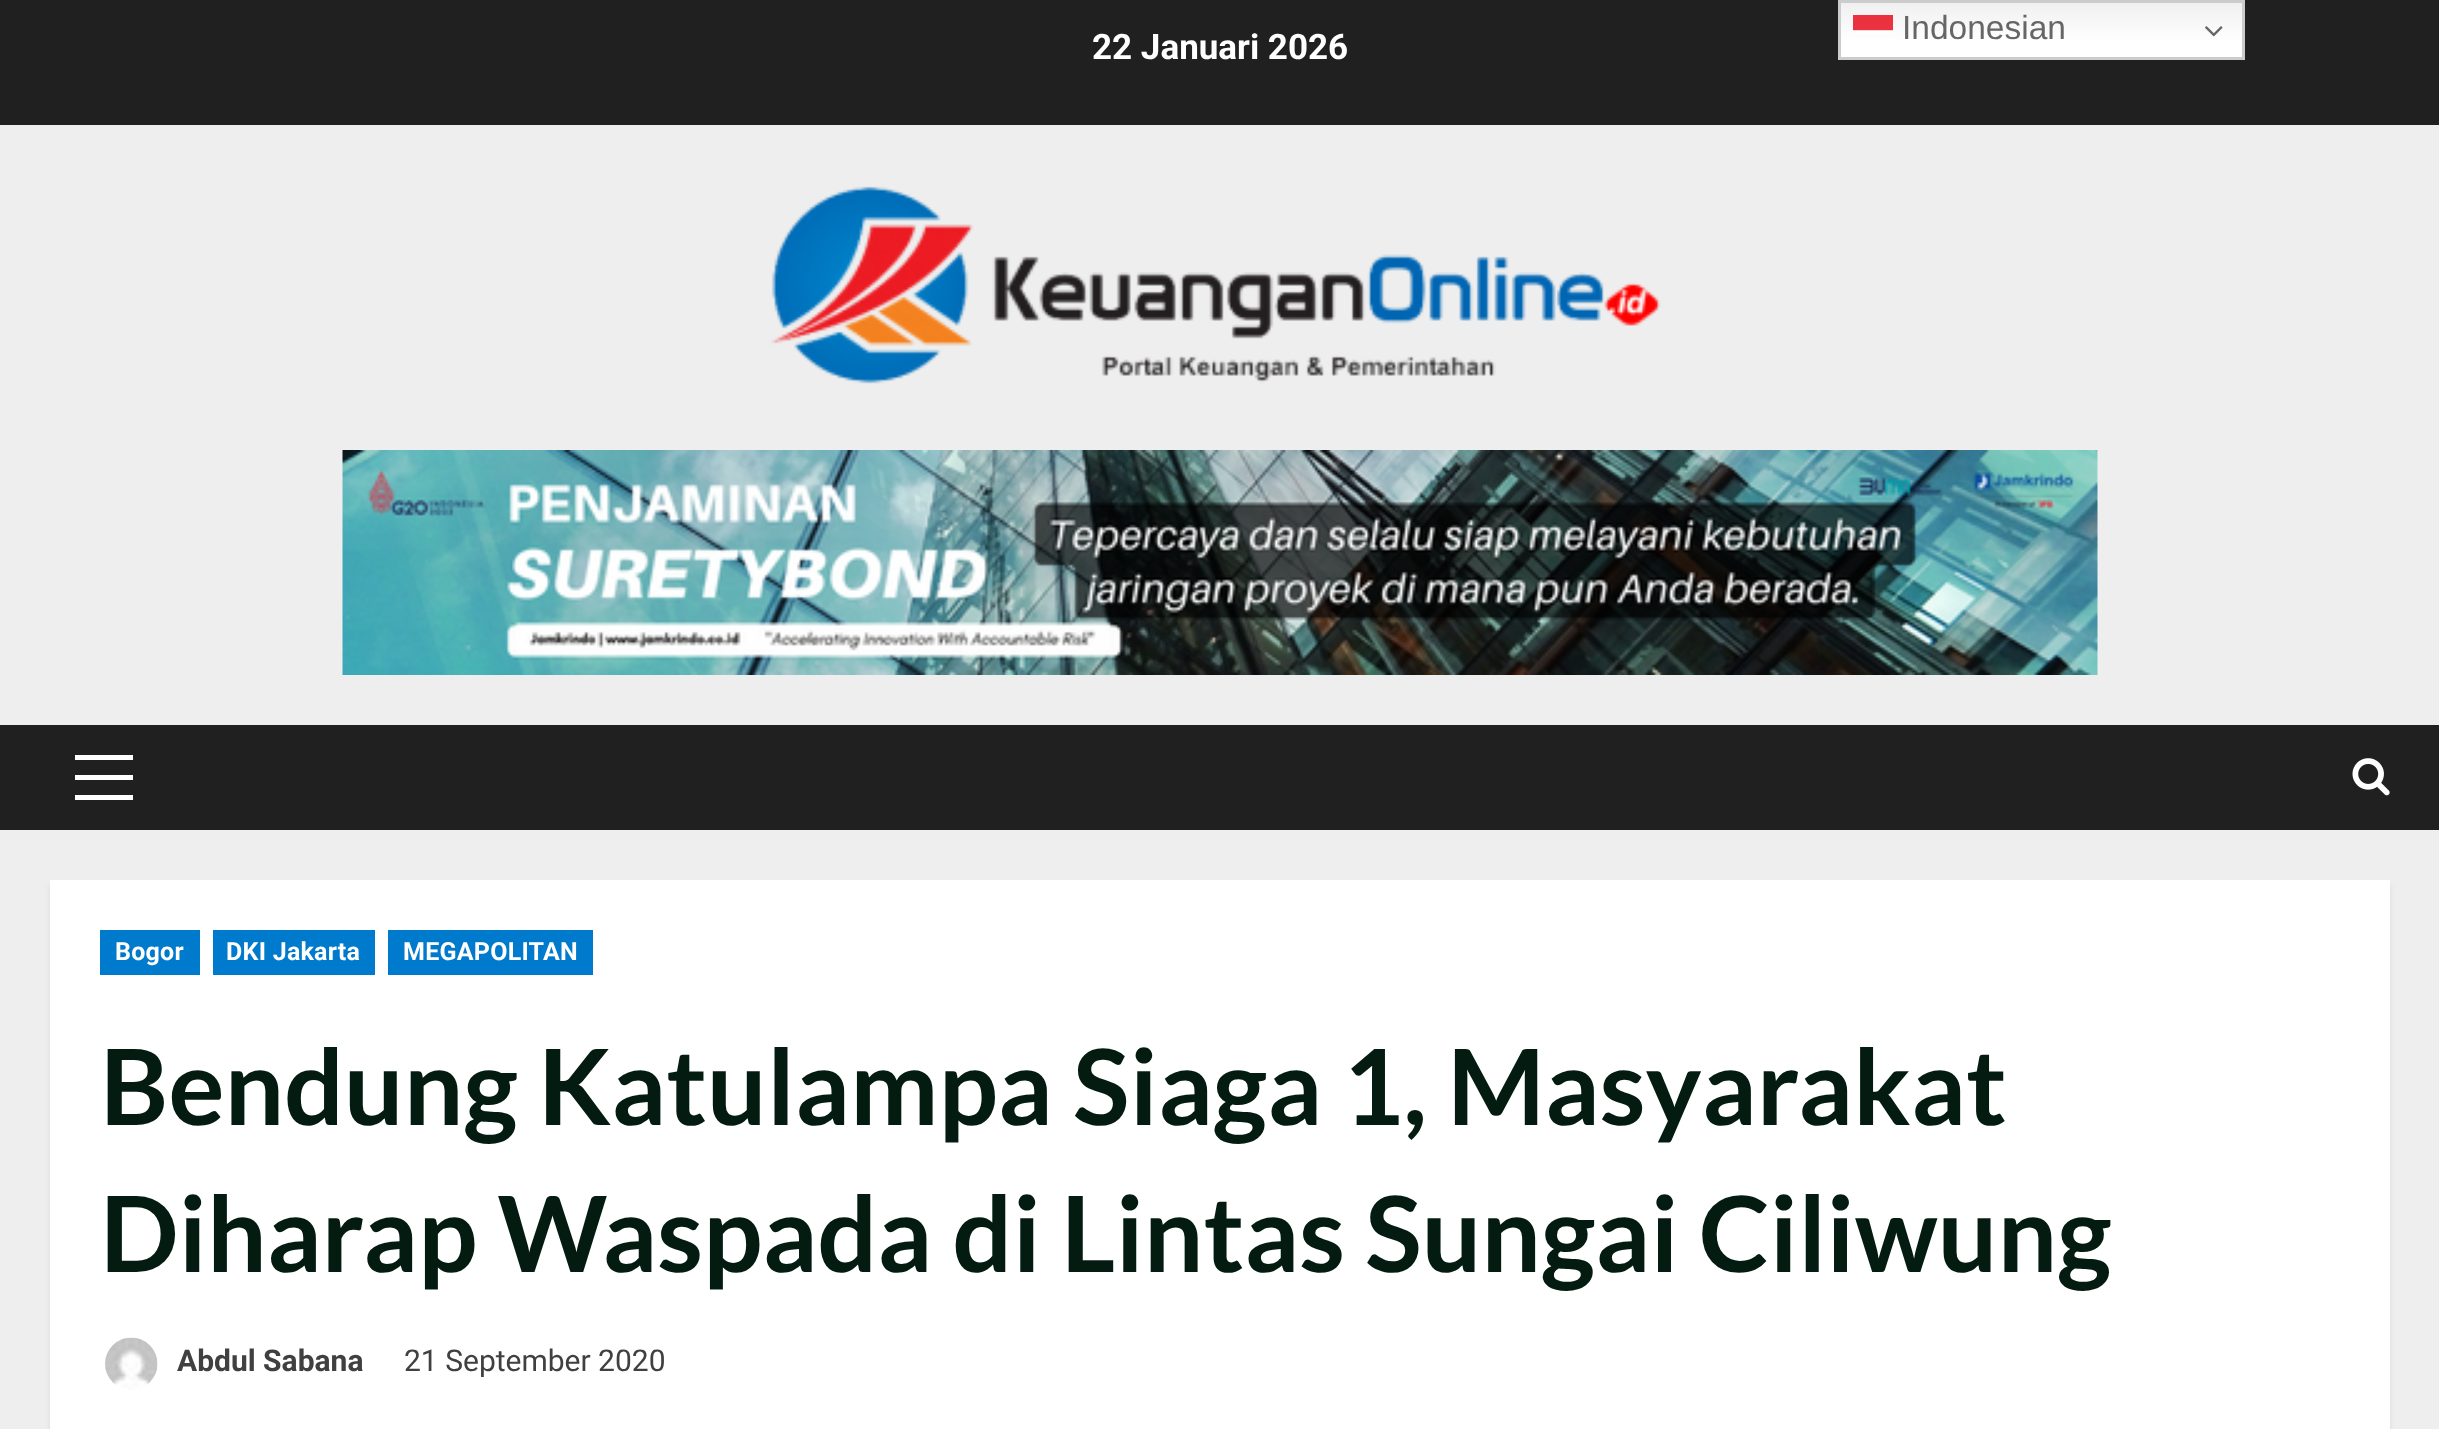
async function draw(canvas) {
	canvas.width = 2439;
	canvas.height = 1429;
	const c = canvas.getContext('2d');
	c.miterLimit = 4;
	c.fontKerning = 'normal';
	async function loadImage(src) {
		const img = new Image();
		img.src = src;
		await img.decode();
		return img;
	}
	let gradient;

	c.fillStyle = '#eee';
	c.fillRect(0, 0, 2439, 1429);
	c.fillStyle = '#202020';
	c.fillRect(0, 0, 2439, 125);
	gradient = c.createLinearGradient(2041, 0, 2041, 60);
	gradient.addColorStop(0, '#efefef');
	gradient.addColorStop(0.7, '#fff');
	c.fillStyle = gradient;
	c.fillRect(1841, 3, 401, 54);
	gradient = c.createLinearGradient(2041, 0, 2041, 60);
	gradient.addColorStop(0, '#fcfcfc');
	gradient.addColorStop(0.7, '#fff');
	c.fillStyle = gradient;
	c.fillRect(1853, 31, 40, 2);
	gradient = c.createLinearGradient(2041, 0, 2041, 60);
	gradient.addColorStop(0, '#e9303d');
	gradient.addColorStop(0.7, '#ec3341');
	c.fillStyle = gradient;
	c.fillRect(1853, 15, 40, 15);
	gradient = c.createLinearGradient(2041, 0, 2041, 60);
	gradient.addColorStop(0, '#fbd6d8');
	gradient.addColorStop(0.7, '#fbd6d9');
	c.fillStyle = gradient;
	c.fillRect(1853, 30, 40, 1);
	c.strokeStyle = '#ccc';
	c.lineWidth = 3;
	c.strokeRect(1839.5, 1.5, 404, 57);
	c.font = '33.5px Liberation Sans';
	c.fillStyle = '#666';
	c.fillText('Indonesian', 1902, 39);
	c.drawImage(await loadImage('img1.png'), 2205, 26, 18, 11);
	c.font = 'bold 35px Roboto';
	c.fillStyle = '#fff';
	c.fillText('22 Januari 2026', 1092, 59);
	c.drawImage(await loadImage('img2.png'), 771, 186, 890, 198);
	c.drawImage(await loadImage('img3.png'), 342, 450, 1756, 225);
	for (const [x, y, w, h, color] of [
		[0, 725, 2439, 105, '#202020'],
		[75, 775, 58, 5, '#fff'],
		[75, 755, 58, 5, '#fff'],
		[75, 795, 58, 5, '#fff'],
	]) {
		c.fillStyle = color;
		c.fillRect(x, y, w, h);
	}
	c.drawImage(await loadImage('img4.png'), 2352, 758, 38, 38);
	c.fillStyle = '#00000014';
	c.filter = 'blur(2.5px)';
	c.beginPath();
	c.rect(50, 885, 2340, 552);
	c.fill();
	c.filter = 'none';
	c.fillStyle = '#fff';
	c.fillRect(50, 880, 2340, 549);
	c.fillStyle = '#007acc';
	c.fillRect(100, 930, 100, 45);
	c.letterSpacing = '0.25px';
	c.font = 'bold 25px Roboto';
	c.fillStyle = '#fff';
	c.fillText('Bogor', 115, 960);
	c.fillStyle = '#007acc';
	c.fillRect(213, 930, 162, 45);
	c.fillStyle = '#fff';
	c.fillText('DKI Jakarta', 226, 960);
	c.fillStyle = '#007acc';
	c.fillRect(388, 930, 205, 45);
	c.fillStyle = '#fff';
	c.fillText('MEGAPOLITAN', 403, 960);
	c.letterSpacing = '0px';
	c.font = 'bold 105px Lato';
	c.fillStyle = '#031b11';
	c.fillText('Bendung Katulampa Siaga 1, Masyarakat', 100, 1125);
	c.fillText('Diharap Waspada di Lintas Sungai Ciliwung', 100, 1272);
	c.drawImage(await loadImage('img5.png'), 105, 1337, 53, 53);
	c.font = 'bold 30px Roboto';
	c.fillStyle = '#404040';
	c.fillText('Abdul Sabana', 177, 1371);
	c.font = '30px Roboto';
	c.fillText('21 September 2020', 404, 1371);
}

draw(document.querySelector('canvas'));
